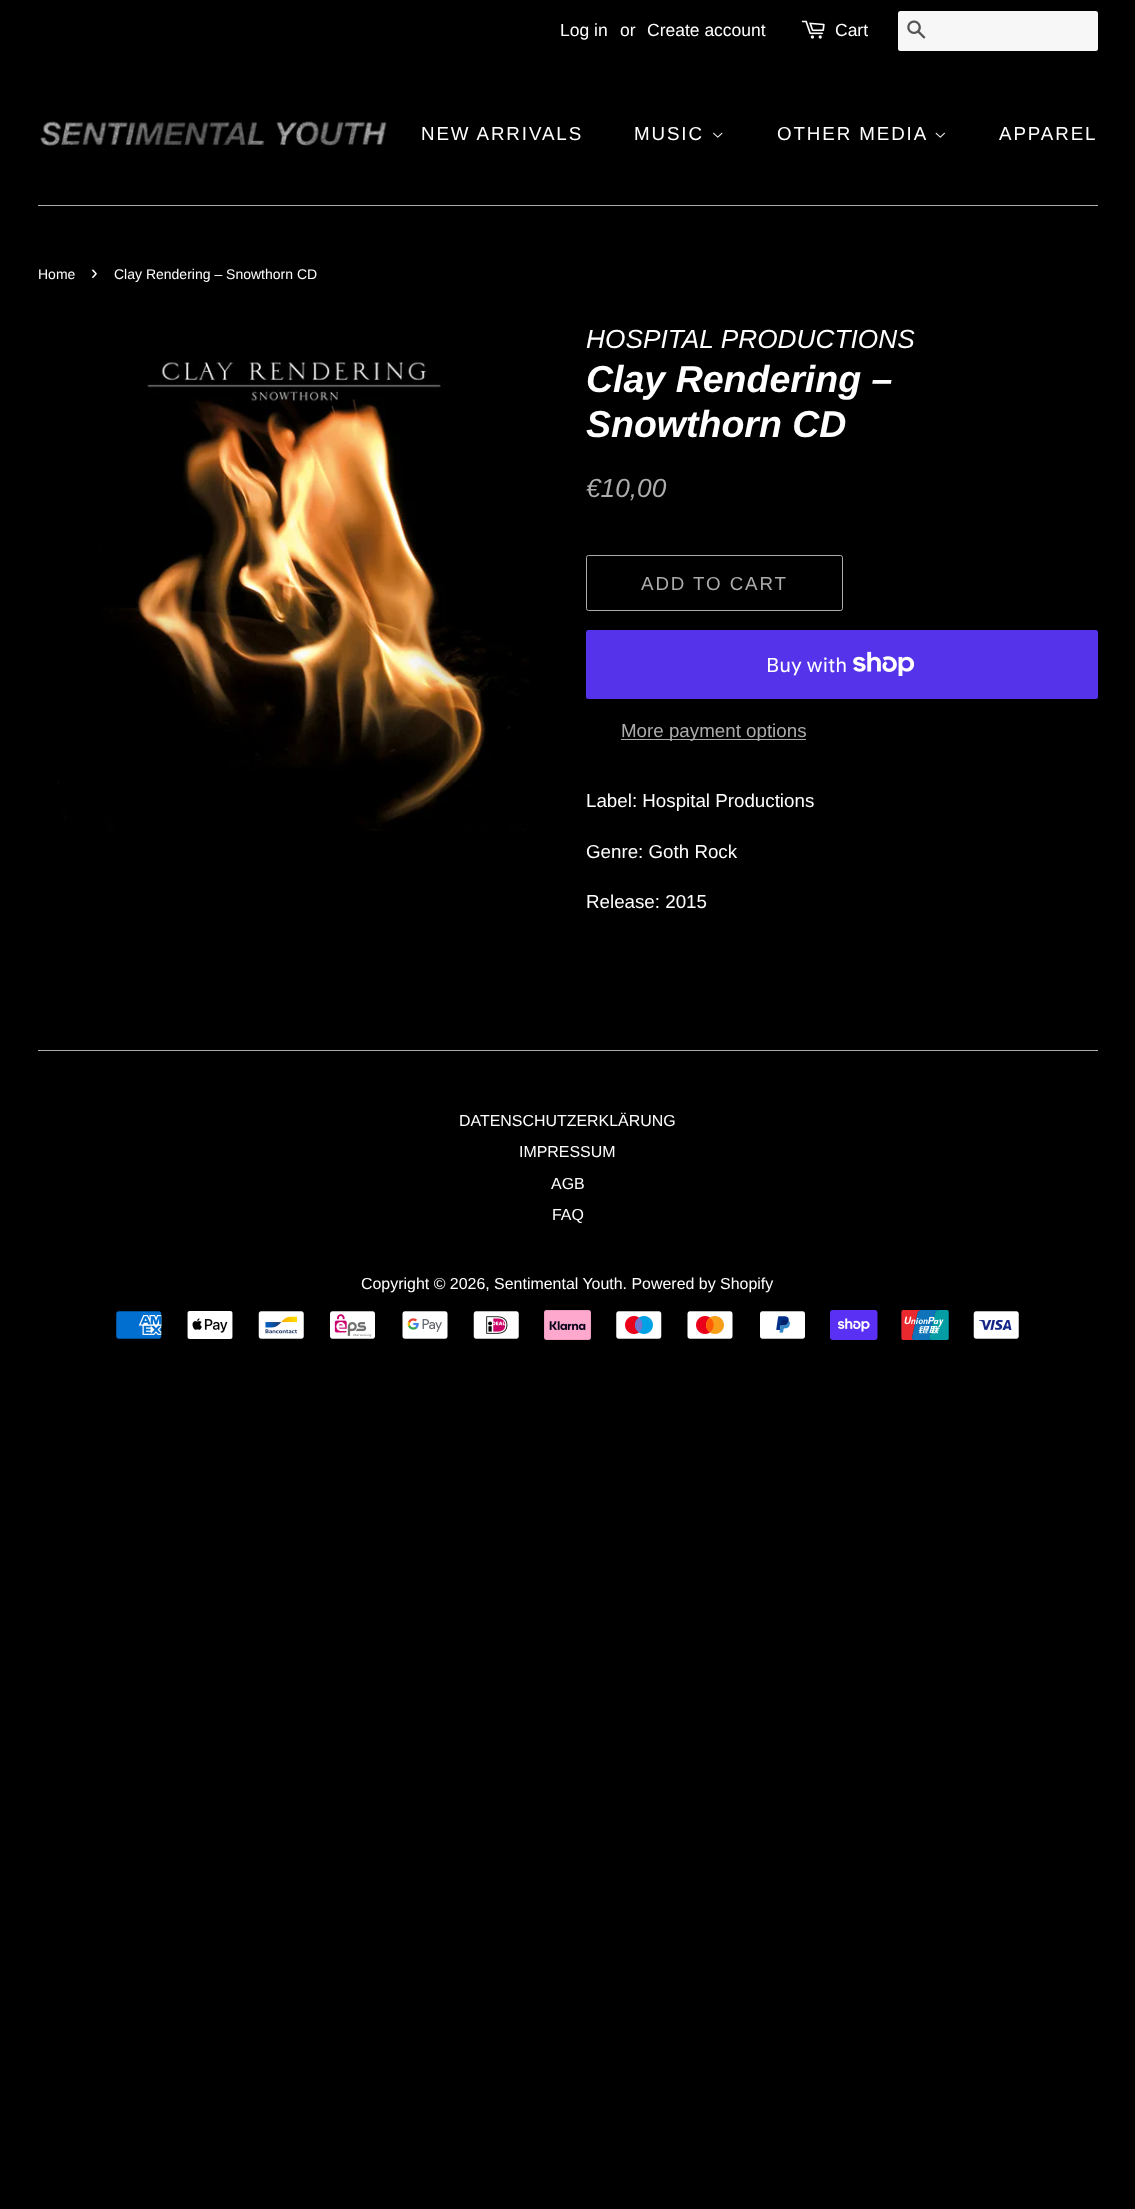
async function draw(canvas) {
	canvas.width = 1135;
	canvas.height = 2209;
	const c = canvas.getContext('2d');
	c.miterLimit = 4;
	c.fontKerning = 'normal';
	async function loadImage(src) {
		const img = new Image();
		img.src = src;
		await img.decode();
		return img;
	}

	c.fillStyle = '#000';
	c.fillRect(0, 0, 1135, 2209);
	c.font = '17.5px Liberation Sans';
	c.fillStyle = '#fff';
	for (const [text, x, y] of [
		['Log in', 560, 36],
		['or', 620, 36],
		['Create account', 647, 36],
	]) {
		c.fillText(text, x, y);
	}
	c.drawImage(await loadImage('img1.png'), 801, 20, 24, 19);
	c.fillText('Cart', 835, 36);
	c.beginPath();
	c.roundRect(898, 11, 200, 40, 2.5);
	c.fill();
	c.fillStyle = '#00000008';
	c.fillRect(898, 11, 200, 40);
	c.drawImage(await loadImage('img2.png'), 907, 20, 19, 19);
	c.fillStyle = '#acacac';
	c.fillRect(38, 205, 1060, 1);
	c.drawImage(await loadImage('img3.png'), 40, 121, 347, 25);
	c.letterSpacing = '1.9px';
	c.font = '18.75px Liberation Sans';
	c.fillStyle = '#fff';
	c.fillText('NEW ARRIVALS', 421, 140);
	c.fillText('MUSIC', 634, 140);
	c.drawImage(await loadImage('img4.png'), 713, 132, 10, 6);
	c.fillText('OTHER MEDIA', 777, 140);
	c.drawImage(await loadImage('img5.png'), 935, 132, 10, 6);
	c.fillText('APPAREL', 999, 140);
	c.letterSpacing = '0px';
	c.font = '14px Liberation Sans';
	c.fillText('Home', 38, 279);
	c.font = '20px Liberation Sans';
	c.fillText('›', 91, 279);
	c.font = '14px Liberation Sans';
	c.fillText('Clay Rendering – Snowthorn CD', 114, 279);
	c.drawImage(await loadImage('img6.png'), 57, 362, 473, 469);
	c.font = 'italic 26.25px Liberation Sans';
	c.fillText('HOSPITAL PRODUCTIONS', 586, 348);
	c.font = 'italic bold 37.5px Liberation Sans';
	c.fillText('Clay Rendering –', 586, 392);
	c.fillText('Snowthorn CD', 586, 437);
	c.font = 'italic 26.25px Liberation Sans';
	c.fillStyle = '#acacac';
	c.fillText('€10,00', 586, 497);
	c.beginPath();
	c.roundRect(586.5, 555.5, 256, 55, 2);
	c.strokeStyle = '#acacac';
	c.stroke();
	c.letterSpacing = '1.9px';
	c.font = '18.75px Liberation Sans';
	c.fillText('ADD TO CART', 641, 590);
	c.fillStyle = '#5433eb';
	c.beginPath();
	c.roundRect(586, 630, 512, 69, 2.5);
	c.fill();
	c.letterSpacing = '0px';
	c.font = '20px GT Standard';
	c.fillStyle = '#fff';
	c.fillText('Buy with', 766, 672);
	c.drawImage(await loadImage('img7.png'), 853, 651, 62, 25);
	c.fillStyle = '#acacac';
	c.fillRect(621, 739, 185, 1);
	c.font = '18.75px Liberation Sans';
	c.fillText('More payment options', 621, 737);
	c.fillStyle = '#fff';
	for (const [text, x, y] of [
		['Label: Hospital Productions', 586, 807],
		['Genre: Goth Rock', 586, 858],
		['Release: 2015', 586, 908],
	]) {
		c.fillText(text, x, y);
	}
	c.fillStyle = '#acacac';
	c.fillRect(38, 1050, 1060, 1);
	c.font = '15.95px Liberation Sans';
	c.fillStyle = '#fff';
	for (const [text, x, y] of [
		['DATENSCHUTZERKLÄRUNG', 459, 1126],
		['IMPRESSUM', 519, 1157],
		['AGB', 551, 1189],
		['FAQ', 552, 1220],
		['Copyright © 2026, Sentimental Youth. Powered by Shopify', 361, 1289],
	]) {
		c.fillText(text, x, y);
	}
	c.drawImage(await loadImage('img8.png'), 116, 1311, 46, 28);
	c.drawImage(await loadImage('img9.png'), 187, 1311, 46, 28);
	c.drawImage(await loadImage('img10.png'), 258, 1311, 46, 28);
	c.drawImage(await loadImage('img11.png'), 330, 1311, 45, 28);
	c.drawImage(await loadImage('img12.png'), 402, 1311, 46, 28);
	c.drawImage(await loadImage('img13.png'), 473, 1311, 46, 28);
	c.drawImage(await loadImage('img14.png'), 544, 1310, 47, 30);
	c.drawImage(await loadImage('img15.png'), 616, 1311, 46, 28);
	c.drawImage(await loadImage('img16.png'), 687, 1311, 46, 28);
	c.drawImage(await loadImage('img17.png'), 760, 1311, 45, 28);
	c.drawImage(await loadImage('img18.png'), 830, 1310, 48, 30);
	c.drawImage(await loadImage('img19.png'), 901, 1310, 48, 30);
	c.drawImage(await loadImage('img20.png'), 973, 1311, 46, 28);
}

draw(document.querySelector('canvas'));
